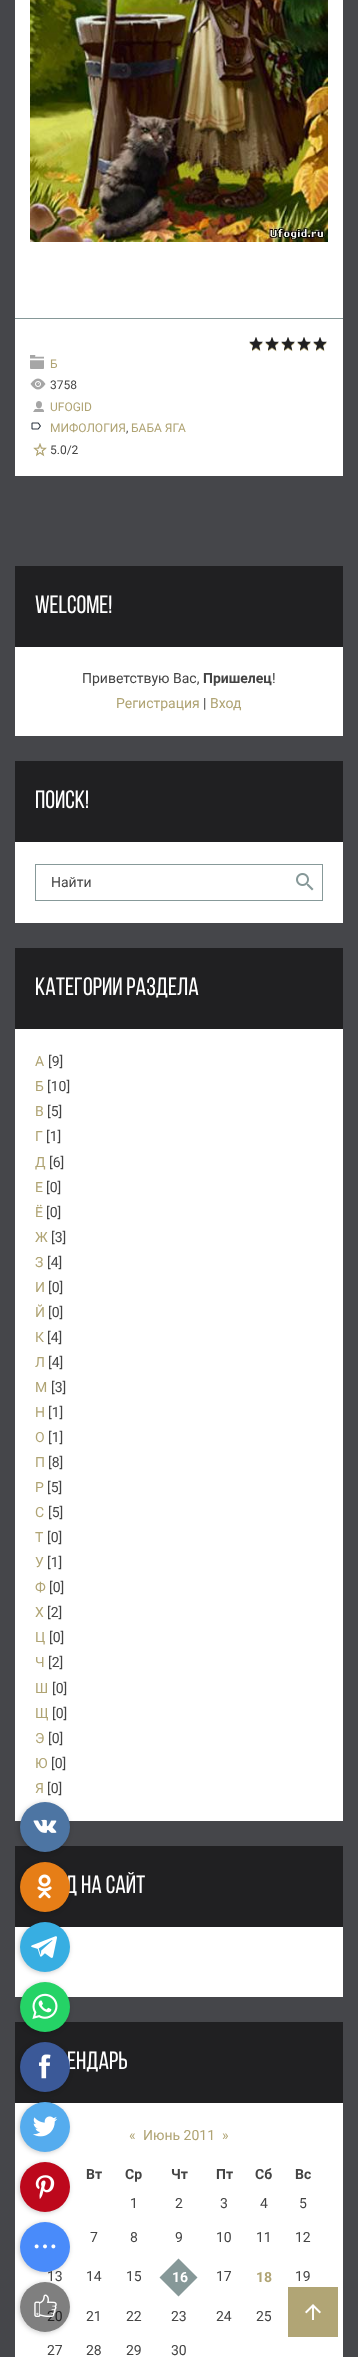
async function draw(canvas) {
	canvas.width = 358;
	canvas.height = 2357;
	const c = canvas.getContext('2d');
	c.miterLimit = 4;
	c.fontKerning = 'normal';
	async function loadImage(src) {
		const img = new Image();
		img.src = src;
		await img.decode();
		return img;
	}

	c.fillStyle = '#45464a';
	c.fillRect(0, 0, 358, 2357);
	c.fillStyle = '#fff';
	c.fillRect(15, 0, 328, 476);
	c.drawImage(await loadImage('img1.png'), 30, 0, 298, 242);
	c.fillStyle = '#869898';
	c.fillRect(15, 318, 328, 1);
	c.drawImage(await loadImage('img2.png'), 249, 338, 78, 14);
	c.drawImage(await loadImage('img3.png'), 249, 337, 78, 14);
	c.drawImage(await loadImage('img4.png'), 30, 355, 14, 14);
	c.font = '12px Roboto';
	c.fillStyle = '#b0a474';
	c.fillText('Б', 50, 368);
	c.drawImage(await loadImage('img5.png'), 30, 378, 16, 12);
	c.fillStyle = '#444';
	c.fillText('3758', 50, 389);
	c.drawImage(await loadImage('img6.png'), 33, 401, 11, 11);
	c.fillStyle = '#b0a474';
	c.fillText('UFOGID', 50, 411);
	c.drawImage(await loadImage('img7.png'), 31, 422, 10, 8);
	c.fillText('МИФОЛОГИЯ', 50, 432);
	c.fillStyle = '#444';
	c.fillText(',', 126, 432);
	c.fillStyle = '#b0a474';
	c.fillText('БАБА ЯГА', 131, 432);
	c.drawImage(await loadImage('img8.png'), 33, 443, 14, 14);
	c.fillStyle = '#444';
	c.fillText('5.0/2', 50, 454);
	c.fillStyle = '#fff';
	c.fillRect(15, 647, 328, 89);
	c.fillStyle = '#202022';
	c.fillRect(15, 566, 328, 81);
	c.font = '25px Bebas Neue';
	c.fillStyle = '#fff';
	c.fillText('WELCOME!', 35, 613);
	c.font = '14px Roboto';
	c.fillStyle = '#444';
	c.fillText('Приветствую Вас,', 82, 683);
	c.font = 'bold 14px Roboto';
	c.fillText('Пришелец', 203, 683);
	c.font = '14px Roboto';
	c.fillText('!', 272, 683);
	c.fillStyle = '#b0a474';
	c.fillText('Регистрация', 116, 708);
	c.fillStyle = '#444';
	c.fillText('|', 203, 708);
	c.fillStyle = '#b0a474';
	c.fillText('Вход', 210, 708);
	c.fillStyle = '#fff';
	c.fillRect(15, 842, 328, 81);
	c.fillStyle = '#202022';
	c.fillRect(15, 761, 328, 81);
	c.font = '25px Bebas Neue';
	c.fillStyle = '#fff';
	c.fillText('ПОИСК!', 35, 808);
	c.strokeStyle = '#879999';
	c.strokeRect(35.5, 864.5, 287, 36);
	c.font = '14px Roboto';
	c.fillStyle = '#444';
	c.fillText('Найти', 51, 887);
	c.drawImage(await loadImage('img9.png'), 296, 873, 18, 18);
	c.fillStyle = '#fff';
	c.fillRect(15, 1029, 328, 792);
	c.fillStyle = '#202022';
	c.fillRect(15, 948, 328, 81);
	c.font = '25px Bebas Neue';
	c.fillStyle = '#fff';
	c.fillText('КАТЕГОРИИ РАЗДЕЛА', 35, 995);
	c.font = '14px Roboto';
	c.fillStyle = '#b0a474';
	c.fillText('А', 35, 1066);
	c.fillStyle = '#444';
	c.fillText('[9]', 48, 1066);
	c.fillStyle = '#b0a474';
	c.fillText('Б', 35, 1091);
	c.fillStyle = '#444';
	c.fillText('[10]', 47, 1091);
	c.fillStyle = '#b0a474';
	c.fillText('В', 35, 1116);
	c.fillStyle = '#444';
	c.fillText('[5]', 47, 1116);
	c.fillStyle = '#b0a474';
	c.fillText('Г', 35, 1141);
	c.fillStyle = '#444';
	c.fillText('[1]', 46, 1141);
	c.fillStyle = '#b0a474';
	c.fillText('Д', 35, 1167);
	c.fillStyle = '#444';
	c.fillText('[6]', 49, 1167);
	c.fillStyle = '#b0a474';
	c.fillText('Е', 35, 1192);
	c.fillStyle = '#444';
	c.fillText('[0]', 46, 1192);
	c.fillStyle = '#b0a474';
	c.fillText('Ё', 35, 1217);
	c.fillStyle = '#444';
	c.fillText('[0]', 46, 1217);
	c.fillStyle = '#b0a474';
	c.fillText('Ж', 35, 1242);
	c.fillStyle = '#444';
	c.fillText('[3]', 51, 1242);
	c.fillStyle = '#b0a474';
	c.fillText('З', 35, 1267);
	c.fillStyle = '#444';
	c.fillText('[4]', 47, 1267);
	c.fillStyle = '#b0a474';
	c.fillText('И', 35, 1292);
	c.fillStyle = '#444';
	c.fillText('[0]', 48, 1292);
	c.fillStyle = '#b0a474';
	c.fillText('Й', 35, 1317);
	c.fillStyle = '#444';
	c.fillText('[0]', 48, 1317);
	c.fillStyle = '#b0a474';
	c.fillText('К', 35, 1342);
	c.fillStyle = '#444';
	c.fillText('[4]', 47, 1342);
	c.fillStyle = '#b0a474';
	c.fillText('Л', 35, 1367);
	c.fillStyle = '#444';
	c.fillText('[4]', 48, 1367);
	c.fillStyle = '#b0a474';
	c.fillText('М', 35, 1392);
	c.fillStyle = '#444';
	c.fillText('[3]', 51, 1392);
	c.fillStyle = '#b0a474';
	c.fillText('Н', 35, 1417);
	c.fillStyle = '#444';
	c.fillText('[1]', 48, 1417);
	c.fillStyle = '#b0a474';
	c.fillText('О', 35, 1442);
	c.fillStyle = '#444';
	c.fillText('[1]', 48, 1442);
	c.fillStyle = '#b0a474';
	c.fillText('П', 35, 1467);
	c.fillStyle = '#444';
	c.fillText('[8]', 48, 1467);
	c.fillStyle = '#b0a474';
	c.fillText('Р', 35, 1492);
	c.fillStyle = '#444';
	c.fillText('[5]', 47, 1492);
	c.fillStyle = '#b0a474';
	c.fillText('С', 35, 1517);
	c.fillStyle = '#444';
	c.fillText('[5]', 48, 1517);
	c.fillStyle = '#b0a474';
	c.fillText('Т', 35, 1542);
	c.fillStyle = '#444';
	c.fillText('[0]', 47, 1542);
	c.fillStyle = '#b0a474';
	c.fillText('У', 35, 1567);
	c.fillStyle = '#444';
	c.fillText('[1]', 47, 1567);
	c.fillStyle = '#b0a474';
	c.fillText('Ф', 35, 1592);
	c.fillStyle = '#444';
	c.fillText('[0]', 49, 1592);
	c.fillStyle = '#b0a474';
	c.fillText('Х', 35, 1617);
	c.fillStyle = '#444';
	c.fillText('[2]', 47, 1617);
	c.fillStyle = '#b0a474';
	c.fillText('Ц', 35, 1642);
	c.fillStyle = '#444';
	c.fillText('[0]', 49, 1642);
	c.fillStyle = '#b0a474';
	c.fillText('Ч', 35, 1667);
	c.fillStyle = '#444';
	c.fillText('[2]', 48, 1667);
	c.fillStyle = '#b0a474';
	c.fillText('Ш', 35, 1693);
	c.fillStyle = '#444';
	c.fillText('[0]', 52, 1693);
	c.fillStyle = '#b0a474';
	c.fillText('Щ', 35, 1718);
	c.fillStyle = '#444';
	c.fillText('[0]', 52, 1718);
	c.fillStyle = '#b0a474';
	c.fillText('Э', 35, 1743);
	c.fillStyle = '#444';
	c.fillText('[0]', 48, 1743);
	c.fillStyle = '#b0a474';
	c.fillText('Ю', 35, 1768);
	c.fillStyle = '#444';
	c.fillText('[0]', 51, 1768);
	c.fillStyle = '#b0a474';
	c.fillText('Я', 35, 1793);
	c.fillStyle = '#444';
	c.fillText('[0]', 47, 1793);
	c.fillStyle = '#fff';
	c.fillRect(15, 1927, 328, 70);
	c.fillStyle = '#202022';
	c.fillRect(15, 1846, 328, 81);
	c.font = '25px Bebas Neue';
	c.fillStyle = '#fff';
	c.fillText('Д НА САЙТ', 65, 1893);
	for (const [x, y, w, h, color] of [
		[15, 2103, 328, 254, '#fff'],
		[288, 2287, 50, 50, '#b1a575'],
		[15, 2022, 328, 81, '#202022'],
	]) {
		c.fillStyle = color;
		c.fillRect(x, y, w, h);
	}
	c.fillStyle = '#fff';
	c.fillText('ЕНДАРЬ', 67, 2069);
	c.font = '14px Roboto';
	c.fillStyle = '#b0a474';
	for (const [text, x, y] of [
		['«', 129, 2140],
		['Июнь 2011', 143, 2140],
		['»', 222, 2140],
	]) {
		c.fillText(text, x, y);
	}
	c.font = 'bold 14px Roboto';
	c.fillStyle = '#444';
	for (const [text, x, y] of [
		['Вт', 86, 2179],
		['Ср', 125, 2179],
		['Чт', 171, 2179],
		['Пт', 216, 2179],
		['Сб', 255, 2179],
		['Вс', 295, 2179],
	]) {
		c.fillText(text, x, y);
	}
	c.font = '14px Roboto';
	for (const [text, x, y] of [
		['1', 130, 2208],
		['2', 175, 2208],
		['3', 220, 2208],
		['4', 260, 2208],
		['5', 299, 2208],
		['7', 90, 2242],
		['8', 130, 2242],
		['9', 175, 2242],
		['10', 216, 2242],
		['11', 256, 2242],
		['12', 295, 2242],
		['13', 47, 2281],
		['14', 86, 2281],
		['15', 126, 2281],
	]) {
		c.fillText(text, x, y);
	}
	c.fillStyle = '#869898';
	c.beginPath();
	c.moveTo(178.5, 2258.5);
	c.lineTo(197.5, 2277.5);
	c.lineTo(178.5, 2296.5);
	c.lineTo(159.5, 2277.5);
	c.closePath();
	c.fill();
	c.font = 'bold 14px Roboto';
	c.fillStyle = '#fff';
	c.fillText('16', 172, 2282);
	c.font = '14px Roboto';
	c.fillStyle = '#444';
	c.fillText('17', 216, 2281);
	c.font = 'bold 14px Roboto';
	c.fillStyle = '#b0a474';
	c.fillText('18', 256, 2282);
	c.font = '14px Roboto';
	c.fillStyle = '#444';
	for (const [text, x, y] of [
		['19', 295, 2281],
		['20', 47, 2321],
		['21', 86, 2321],
		['22', 126, 2321],
		['23', 171, 2321],
		['24', 216, 2321],
		['25', 256, 2321],
		['27', 47, 2355],
		['28', 86, 2355],
		['29', 126, 2355],
		['30', 171, 2355],
	]) {
		c.fillText(text, x, y);
	}
	c.drawImage(await loadImage('img10.png'), 305, 2304, 16, 16);
	c.fillStyle = '#00000033';
	c.filter = 'blur(2.5px)';
	c.beginPath();
	c.roundRect(19, 1803, 50, 50, 25);
	c.fill();
	c.filter = 'none';
	c.fillStyle = '#4d75a3';
	c.beginPath();
	c.arc(45, 1827, 25, 0, 2 * Math.PI);
	c.fill();
	c.drawImage(await loadImage('img11.png'), 33, 1819, 24, 14);
	c.fillStyle = '#00000033';
	c.filter = 'blur(2.5px)';
	c.beginPath();
	c.roundRect(19, 1863, 50, 50, 25);
	c.fill();
	c.filter = 'none';
	c.fillStyle = '#e67e17';
	c.beginPath();
	c.arc(45, 1887, 25, 0, 2 * Math.PI);
	c.fill();
	c.drawImage(await loadImage('img12.png'), 37, 1874, 15, 25);
	c.fillStyle = '#00000033';
	c.filter = 'blur(2.5px)';
	c.beginPath();
	c.roundRect(19, 1923, 50, 50, 25);
	c.fill();
	c.filter = 'none';
	c.fillStyle = '#37aee2';
	c.beginPath();
	c.arc(45, 1947, 25, 0, 2 * Math.PI);
	c.fill();
	c.drawImage(await loadImage('img13.png'), 31, 1936, 26, 22);
	c.fillStyle = '#00000033';
	c.filter = 'blur(2.5px)';
	c.beginPath();
	c.roundRect(19, 1983, 50, 50, 25);
	c.fill();
	c.filter = 'none';
	c.fillStyle = '#25d366';
	c.beginPath();
	c.arc(45, 2007, 25, 0, 2 * Math.PI);
	c.fill();
	c.drawImage(await loadImage('img14.png'), 32, 1993, 26, 26);
	c.fillStyle = '#00000033';
	c.filter = 'blur(2.5px)';
	c.beginPath();
	c.roundRect(19, 2043, 50, 50, 25);
	c.fill();
	c.filter = 'none';
	c.fillStyle = '#3b5998';
	c.beginPath();
	c.arc(45, 2067, 25, 0, 2 * Math.PI);
	c.fill();
	c.drawImage(await loadImage('img15.png'), 39, 2054, 12, 25);
	c.fillStyle = '#00000033';
	c.filter = 'blur(2.5px)';
	c.beginPath();
	c.roundRect(19, 2103, 50, 50, 25);
	c.fill();
	c.filter = 'none';
	c.fillStyle = '#55acee';
	c.beginPath();
	c.arc(45, 2127, 25, 0, 2 * Math.PI);
	c.fill();
	c.drawImage(await loadImage('img16.png'), 33, 2116, 25, 21);
	c.fillStyle = '#00000033';
	c.filter = 'blur(2.5px)';
	c.beginPath();
	c.roundRect(19, 2163, 50, 50, 25);
	c.fill();
	c.filter = 'none';
	c.fillStyle = '#bd081c';
	c.beginPath();
	c.arc(45, 2187, 25, 0, 2 * Math.PI);
	c.fill();
	c.drawImage(await loadImage('img17.png'), 35, 2175, 20, 24);
	c.fillStyle = '#00000033';
	c.filter = 'blur(2.5px)';
	c.beginPath();
	c.roundRect(19, 2223, 50, 50, 25);
	c.fill();
	c.filter = 'none';
	c.fillStyle = '#498bfa';
	c.beginPath();
	c.arc(45, 2247, 25, 0, 2 * Math.PI);
	c.fill();
	c.drawImage(await loadImage('img18.png'), 34, 2244, 22, 5);
	c.save();
	c.beginPath();
	c.moveTo(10, 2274);
	c.lineTo(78, 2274);
	c.lineTo(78, 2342);
	c.lineTo(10, 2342);
	c.closePath();
	c.moveTo(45, 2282);
	c.bezierCurveTo(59, 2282, 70, 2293, 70, 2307);
	c.bezierCurveTo(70, 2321, 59, 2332, 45, 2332);
	c.bezierCurveTo(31, 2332, 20, 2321, 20, 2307);
	c.bezierCurveTo(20, 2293, 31, 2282, 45, 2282);
	c.closePath();
	c.clip('evenodd');
	c.fillStyle = '#00000033';
	c.filter = 'blur(2.5px)';
	c.beginPath();
	c.roundRect(19, 2283, 50, 50, 25);
	c.fill();
	c.filter = 'none';
	c.restore();
	c.fillStyle = '#00000080';
	c.beginPath();
	c.arc(45, 2307, 25, 0, 2 * Math.PI);
	c.fill();
	c.drawImage(await loadImage('img19.png'), 34, 2294, 23, 23);
}

draw(document.querySelector('canvas'));
